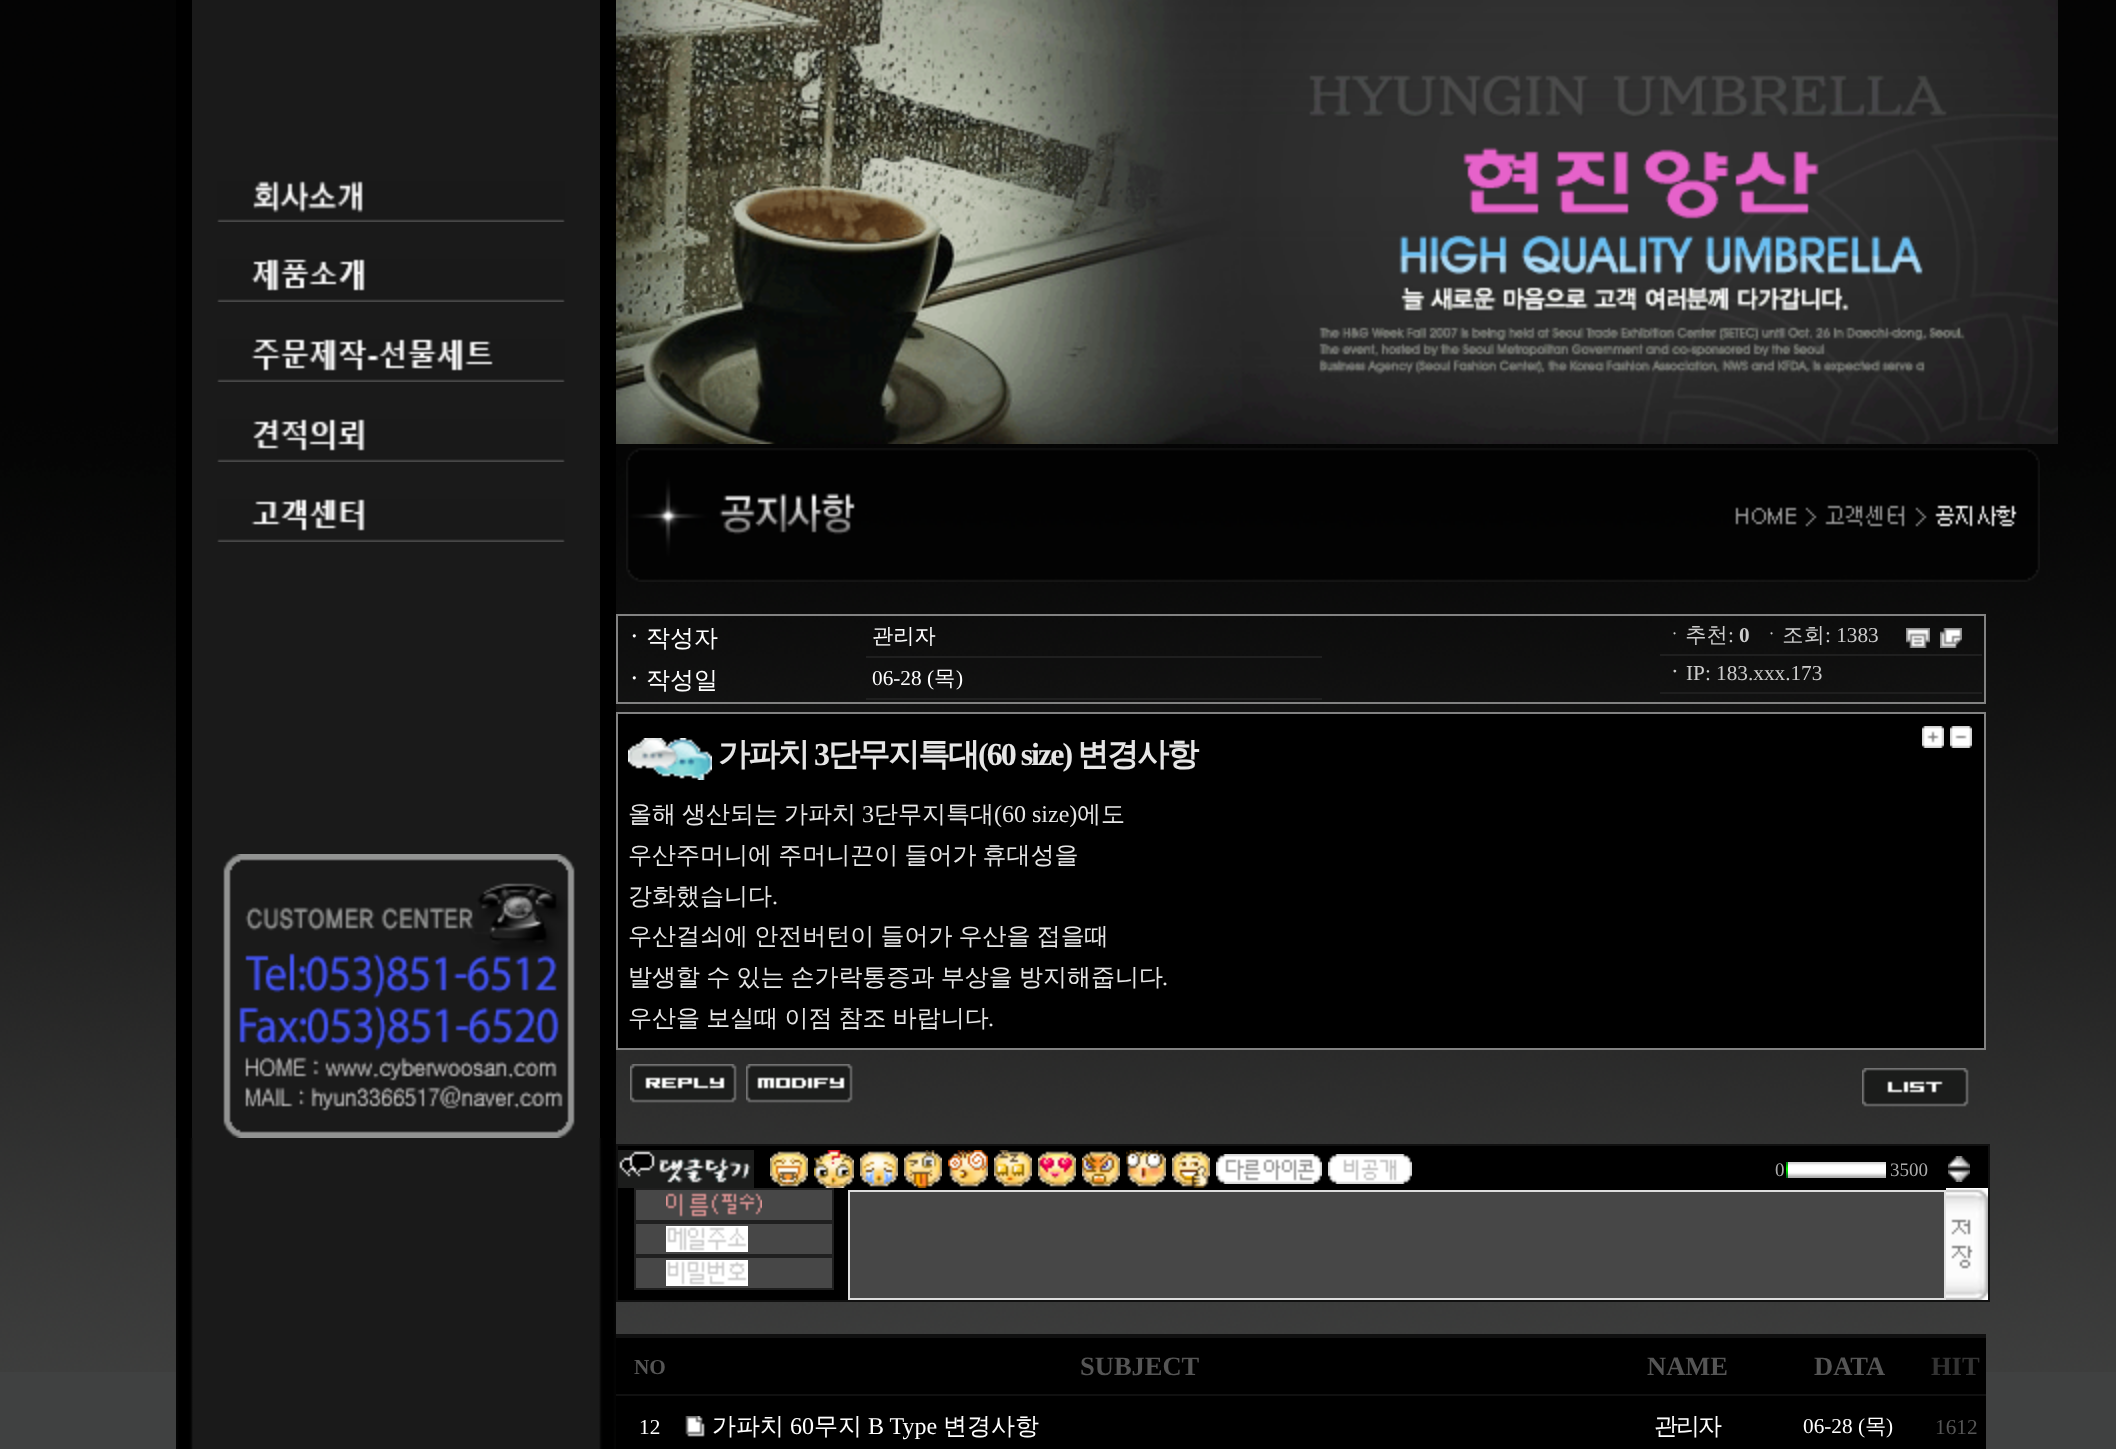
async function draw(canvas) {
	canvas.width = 2116;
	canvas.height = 1449;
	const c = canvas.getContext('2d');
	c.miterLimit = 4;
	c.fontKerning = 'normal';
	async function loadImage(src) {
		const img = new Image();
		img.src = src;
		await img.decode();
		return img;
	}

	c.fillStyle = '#404141';
	c.fillRect(0, 0, 2116, 1449);
	c.drawImage(await loadImage('img1.png'), 0, 0, 2116, 1372);
	c.drawImage(await loadImage('img2.png'), 176, 1138, 440, 311);
	c.fillStyle = '#000';
	c.fillRect(176, 0, 16, 1138);
	c.fillStyle = '#1a1a1a';
	c.fillRect(192, 0, 408, 1138);
	c.drawImage(await loadImage('img3.png'), 217, 181, 348, 41);
	c.drawImage(await loadImage('img4.png'), 217, 259, 348, 43);
	c.drawImage(await loadImage('img5.png'), 217, 339, 348, 43);
	c.drawImage(await loadImage('img6.png'), 217, 419, 348, 43);
	c.drawImage(await loadImage('img7.png'), 217, 499, 348, 43);
	c.drawImage(await loadImage('img8.png'), 223, 854, 352, 284);
	c.fillStyle = '#000';
	c.fillRect(600, 0, 16, 1138);
	c.drawImage(await loadImage('img9.png'), 616, 0, 1442, 444);
	c.drawImage(await loadImage('img10.png'), 626, 448, 1414, 134);
	c.strokeStyle = '#828282';
	c.lineWidth = 2;
	c.strokeRect(617, 615, 1368, 88);
	c.font = 'bold 24px WenQuanYi Zen Hei';
	c.fillStyle = '#fff';
	c.fillText('ㆍ', 622, 646);
	c.font = '500 24px WenQuanYi Zen Hei';
	c.fillText('작성자', 646, 646);
	c.fillStyle = '#1f1f1f';
	c.fillRect(866, 656, 456, 2);
	c.font = '500 21.25px WenQuanYi Zen Hei';
	c.fillStyle = '#fff';
	c.fillText('관리자', 872, 643);
	c.font = 'bold 24px WenQuanYi Zen Hei';
	c.fillText('ㆍ', 622, 688);
	c.font = '500 24px WenQuanYi Zen Hei';
	c.fillText('작성일', 646, 688);
	c.fillStyle = '#1f1f1f';
	c.fillRect(866, 698, 456, 2);
	c.font = '21.25px Liberation Serif';
	c.fillStyle = '#fff';
	c.fillText('06-28 (', 872, 685);
	c.font = '500 21.25px WenQuanYi Zen Hei';
	c.fillText('목', 934, 685);
	c.font = '21.25px Liberation Serif';
	c.fillText(')', 956, 685);
	c.font = '500 21.25px WenQuanYi Zen Hei';
	c.fillStyle = '#ccc';
	c.fillText('ㆍ추천', 1664, 642);
	c.font = '21.25px Liberation Serif';
	c.fillText(':', 1728, 642);
	c.font = 'bold 21.25px Liberation Serif';
	c.fillText('0', 1739, 642);
	c.font = '500 21.25px WenQuanYi Zen Hei';
	c.fillText('ㆍ조회', 1761, 642);
	c.font = '21.25px Liberation Serif';
	c.fillText(': 1383', 1825, 642);
	c.drawImage(await loadImage('img11.png'), 1906, 628, 24, 20);
	c.drawImage(await loadImage('img12.png'), 1940, 628, 22, 20);
	c.fillStyle = '#1f1f1f';
	c.fillRect(1660, 654, 322, 2);
	c.font = 'bold 21.25px WenQuanYi Zen Hei';
	c.fillStyle = '#ccc';
	c.fillText('ㆍ', 1664, 680);
	c.font = '21.25px Liberation Serif';
	c.fillText('IP: 183.xxx.173', 1686, 680);
	c.fillStyle = '#1f1f1f';
	c.fillRect(1660, 692, 322, 2);
	c.strokeRect(617, 713, 1368, 336);
	c.fillStyle = '#000';
	c.fillRect(618, 714, 1366, 334);
	c.drawImage(await loadImage('img13.png'), 628, 738, 84, 42);
	c.letterSpacing = '-2px';
	c.font = 'bold 32px WenQuanYi Zen Hei';
	c.fillStyle = '#e6e6e6';
	c.fillText('가파치', 718, 765);
	c.font = 'bold 32px Liberation Serif';
	c.fillText('3', 814, 765);
	c.font = 'bold 32px WenQuanYi Zen Hei';
	c.fillText('단무지특대', 828, 765);
	c.font = 'bold 32px Liberation Serif';
	c.fillText('(60 size)', 978, 765);
	c.font = 'bold 32px WenQuanYi Zen Hei';
	c.fillText('변경사항', 1077, 765);
	c.drawImage(await loadImage('img14.png'), 1922, 726, 22, 22);
	c.drawImage(await loadImage('img15.png'), 1950, 726, 22, 22);
	c.letterSpacing = '0px';
	c.font = '500 24px WenQuanYi Zen Hei';
	for (const [text, x, y] of [
		['올해', 628, 822],
		['생산되는', 682, 822],
		['가파치', 784, 822],
	]) {
		c.fillText(text, x, y);
	}
	c.font = '24px Liberation Serif';
	c.fillText('3', 862, 822);
	c.font = '500 24px WenQuanYi Zen Hei';
	c.fillText('단무지특대', 874, 822);
	c.font = '24px Liberation Serif';
	c.fillText('(60 size)', 994, 822);
	c.font = '500 24px WenQuanYi Zen Hei';
	c.fillText('에도', 1077, 822);
	c.wordSpacing = '-1px';
	c.fillText('우산주머니에 주머니끈이 들어가 휴대성을', 628, 863);
	c.wordSpacing = '0px';
	c.fillText('강화했습니다', 628, 904);
	c.font = '24px Liberation Serif';
	c.fillText('.', 772, 904);
	c.wordSpacing = '-1px';
	c.font = '500 24px WenQuanYi Zen Hei';
	c.fillText('우산걸쇠에 안전버턴이 들어가 우산을 접을때', 628, 944);
	c.fillText('발생할 수 있는 손가락통증과 부상을 방지해줍니다', 628, 985);
	c.wordSpacing = '0px';
	c.font = '24px Liberation Serif';
	c.fillText('.', 1162, 985);
	c.wordSpacing = '-1px';
	c.font = '500 24px WenQuanYi Zen Hei';
	c.fillText('우산을 보실때 이점 참조 바랍니다', 628, 1026);
	c.wordSpacing = '0px';
	c.font = '24px Liberation Serif';
	c.fillText('.', 988, 1026);
	c.drawImage(await loadImage('img16.png'), 630, 1064, 107, 39);
	c.drawImage(await loadImage('img17.png'), 746, 1064, 107, 39);
	c.drawImage(await loadImage('img18.png'), 1862, 1068, 107, 39);
	c.fillStyle = '#000';
	c.beginPath();
	c.rect(617, 1145, 1372, 156);
	c.fill();
	c.strokeStyle = '#101010';
	c.stroke();
	c.drawImage(await loadImage('img19.png'), 618, 1150, 136, 38);
	c.drawImage(await loadImage('img20.png'), 770, 1151, 38, 36);
	c.drawImage(await loadImage('img21.png'), 814, 1150, 40, 38);
	c.drawImage(await loadImage('img22.png'), 860, 1151, 38, 36);
	c.drawImage(await loadImage('img23.png'), 904, 1150, 38, 38);
	c.drawImage(await loadImage('img24.png'), 948, 1150, 40, 37);
	c.drawImage(await loadImage('img25.png'), 994, 1150, 38, 37);
	c.drawImage(await loadImage('img26.png'), 1038, 1151, 38, 36);
	c.drawImage(await loadImage('img27.png'), 1082, 1151, 38, 36);
	c.drawImage(await loadImage('img28.png'), 1126, 1150, 40, 37);
	c.drawImage(await loadImage('img29.png'), 1172, 1151, 38, 37);
	c.drawImage(await loadImage('img30.png'), 1216, 1154, 106, 30);
	c.drawImage(await loadImage('img31.png'), 1328, 1154, 84, 30);
	c.font = '19px Liberation Serif';
	c.fillStyle = '#aaa';
	c.fillText('0', 1775, 1176);
	c.drawImage(await loadImage('img32.png'), 1788, 1162, 98, 16);
	c.drawImage(await loadImage('img33.png'), 1786, 1162, 2, 16);
	c.fillText('3500', 1890, 1176);
	c.drawImage(await loadImage('img34.png'), 1948, 1156, 22, 26);
	c.fillStyle = '#474747';
	c.fillRect(636, 1190, 196, 30);
	c.drawImage(await loadImage('img35.png'), 666, 1193, 96, 24);
	c.strokeStyle = '#1f1f1f';
	c.strokeRect(635, 1189, 198, 32);
	c.fillRect(636, 1224, 196, 30);
	c.drawImage(await loadImage('img36.png'), 666, 1226, 82, 26);
	c.strokeRect(635, 1223, 198, 32);
	c.fillRect(636, 1258, 196, 30);
	c.drawImage(await loadImage('img37.png'), 666, 1260, 82, 26);
	c.strokeRect(635, 1257, 198, 32);
	for (const [x, y, w, h, color] of [
		[850, 1192, 1094, 106, '#474747'],
		[848, 1190, 1098, 2, '#ddd'],
		[1944, 1190, 2, 110, '#e0e0e0'],
		[848, 1298, 1098, 2, '#ddd'],
		[848, 1190, 2, 110, '#ddd'],
	]) {
		c.fillStyle = color;
		c.fillRect(x, y, w, h);
	}
	c.drawImage(await loadImage('img38.png'), 1946, 1188, 42, 112);
	for (const [x, y, w, h, color] of [
		[616, 1338, 1370, 56, '#000'],
		[616, 1334, 1370, 4, '#101010'],
		[616, 1394, 1370, 2, '#101010'],
	]) {
		c.fillStyle = color;
		c.fillRect(x, y, w, h);
	}
	c.font = 'bold 21.25px Liberation Serif';
	c.fillStyle = '#555';
	c.fillText('NO', 634, 1374);
	c.font = 'bold 26.5px Liberation Serif';
	for (const [text, x, y] of [
		['SUBJECT', 1080, 1375],
		['NAME', 1647, 1375],
		['DATA', 1814, 1375],
	]) {
		c.fillText(text, x, y);
	}
	c.fillStyle = '#333';
	c.fillText('HIT', 1931, 1375);
	c.fillStyle = '#000';
	c.fillRect(616, 1396, 1370, 53);
	c.font = '21.25px Liberation Serif';
	c.fillStyle = '#fff';
	c.fillText('12', 639, 1434);
	c.drawImage(await loadImage('img39.png'), 685, 1416, 20, 21);
	c.font = '500 24px WenQuanYi Zen Hei';
	c.fillText('가파치', 712, 1434);
	c.font = '24px Liberation Serif';
	c.fillText('60', 790, 1434);
	c.font = '500 24px WenQuanYi Zen Hei';
	c.fillText('무지', 814, 1434);
	c.font = '24px Liberation Serif';
	c.fillText('B Type', 868, 1434);
	c.font = '500 24px WenQuanYi Zen Hei';
	c.fillText('변경사항', 943, 1434);
	c.letterSpacing = '-2px';
	c.fillText('관리자', 1654, 1434);
	c.letterSpacing = '0px';
	c.font = '21.25px Liberation Serif';
	c.fillText('06-28 (', 1803, 1433);
	c.font = '500 21.25px WenQuanYi Zen Hei';
	c.fillText('목', 1865, 1433);
	c.font = '21.25px Liberation Serif';
	c.fillText(')', 1886, 1433);
	c.fillStyle = '#555';
	c.fillText('1612', 1935, 1434);
}

draw(document.querySelector('canvas'));
